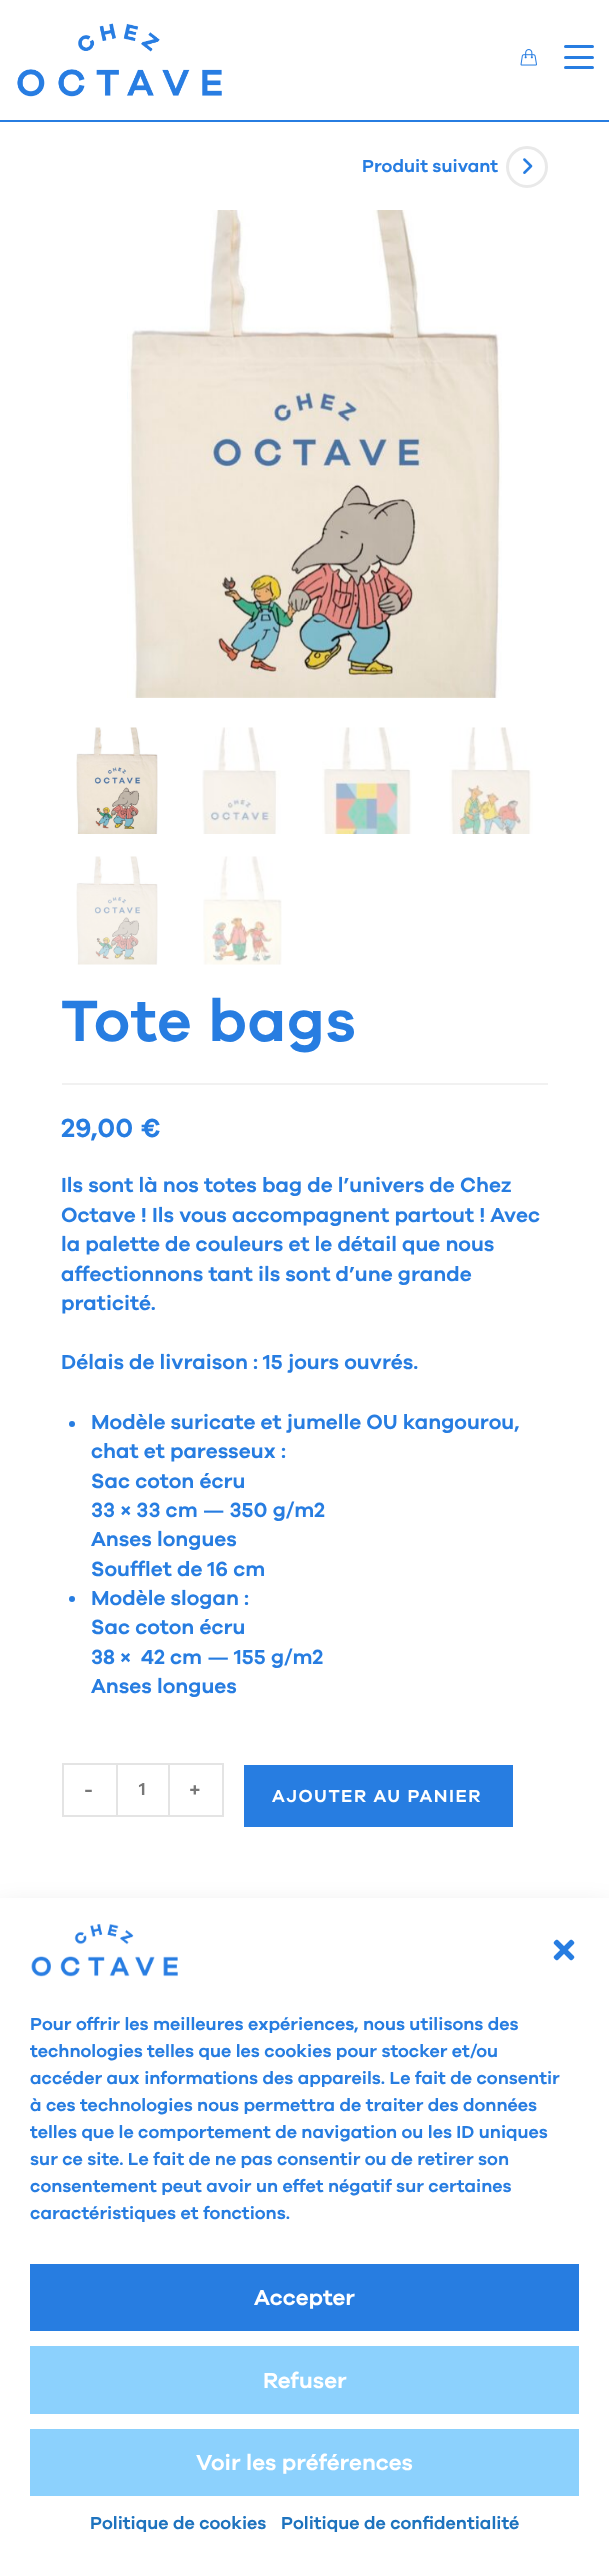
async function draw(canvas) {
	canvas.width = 609;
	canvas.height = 2559;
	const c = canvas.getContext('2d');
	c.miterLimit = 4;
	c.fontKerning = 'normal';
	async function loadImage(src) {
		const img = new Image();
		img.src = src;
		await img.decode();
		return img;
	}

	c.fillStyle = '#fff';
	c.fillRect(0, 0, 609, 2559);
	c.fillStyle = '#277de1';
	c.fillRect(0, 120, 609, 2);
	c.drawImage(await loadImage('img1.png'), 17, 23, 205, 74);
	c.drawImage(await loadImage('img2.png'), 520, 49, 17, 17);
	c.beginPath();
	c.roundRect(564, 56, 30, 3, 1.5);
	c.fill();
	c.beginPath();
	c.roundRect(564, 45, 30, 3, 1.5);
	c.fill();
	c.beginPath();
	c.roundRect(564, 66, 30, 3, 1.5);
	c.fill();
	c.font = '600 18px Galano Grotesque';
	c.fillText('Produit suivant', 362, 172);
	c.beginPath();
	c.arc(527, 167, 19.5, 0, 2 * Math.PI);
	c.strokeStyle = '#e9e9e9';
	c.lineWidth = 3;
	c.stroke();
	c.drawImage(await loadImage('img3.png'), 523, 158, 10, 16);
	c.drawImage(await loadImage('img4.png'), 127, 210, 375, 488);
	c.drawImage(await loadImage('img5.png'), 76, 727, 82, 107);
	c.drawImage(await loadImage('img6.png'), 202, 727, 79, 107);
	c.drawImage(await loadImage('img7.png'), 322, 727, 90, 107);
	c.drawImage(await loadImage('img8.png'), 449, 727, 84, 107);
	c.drawImage(await loadImage('img9.png'), 76, 856, 82, 109);
	c.drawImage(await loadImage('img10.png'), 203, 856, 79, 109);
	c.fillStyle = '#f1f1f1';
	c.fillRect(62, 1083, 486, 2);
	c.letterSpacing = '1px';
	c.font = '600 60px Galano Grotesque';
	c.fillStyle = '#277de1';
	c.fillText('Tote bags', 61, 1041);
	c.letterSpacing = '0px';
	c.font = '600 27px Galano Grotesque';
	c.fillText('29,00 €', 61, 1137);
	c.font = '600 21px Galano Grotesque';
	for (const [text, x, y] of [
		['Ils sont là nos totes bag de l’univers de Chez', 61, 1192],
		['Octave ! Ils vous accompagnent partout ! Avec', 61, 1222],
		['la palette de couleurs et le détail que nous', 61, 1251],
		['affectionnons tant ils sont d’une grande', 61, 1281],
		['praticité.', 61, 1310],
		['Délais de livraison : 15 jours ouvrés.', 61, 1369],
	]) {
		c.fillText(text, x, y);
	}
	c.beginPath();
	c.arc(72, 1424, 3, 0, 2 * Math.PI);
	c.fill();
	for (const [text, x, y] of [
		['Modèle suricate et jumelle OU kangourou,', 91, 1429],
		['chat et paresseux :', 91, 1458],
		['Sac coton écru', 91, 1488],
		['33 × 33 cm — 350 g/m2', 91, 1517],
		['Anses longues', 91, 1546],
		['Soufflet de 16 cm', 91, 1576],
	]) {
		c.fillText(text, x, y);
	}
	c.beginPath();
	c.arc(72, 1599, 3, 0, 2 * Math.PI);
	c.fill();
	for (const [text, x, y] of [
		['Modèle slogan :', 91, 1605],
		['Sac coton écru', 91, 1634],
		['38 ×', 91, 1664],
		['42 cm — 155 g/m2', 141, 1664],
		['Anses longues', 91, 1693],
	]) {
		c.fillText(text, x, y);
	}
	for (const [x, y, w, h, color] of [
		[62, 1763, 54, 2, '#e4e4e4'],
		[62, 1815, 54, 2, '#e4e4e4'],
		[62, 1763, 2, 54, '#e4e4e4'],
	]) {
		c.fillStyle = color;
		c.fillRect(x, y, w, h);
	}
	c.font = '600 20px Galano Grotesque';
	c.fillStyle = '#777';
	c.fillText('-', 84, 1796);
	c.strokeStyle = '#e4e4e4';
	c.lineWidth = 2;
	c.strokeRect(117, 1764, 52, 52);
	c.font = '600 18px Galano Grotesque';
	c.fillText('1', 139, 1795);
	for (const [x, y, w, h, color] of [
		[170, 1763, 54, 2, '#e4e4e4'],
		[222, 1763, 2, 54, '#e4e4e4'],
		[170, 1815, 54, 2, '#e4e4e4'],
	]) {
		c.fillStyle = color;
		c.fillRect(x, y, w, h);
	}
	c.font = '600 20px Galano Grotesque';
	c.fillStyle = '#777';
	c.fillText('+', 189, 1796);
	c.fillStyle = '#277de1';
	c.fillRect(244, 1765, 269, 62);
	c.letterSpacing = '1.5px';
	c.font = '600 18px Galano Grotesque';
	c.fillStyle = '#fff';
	c.fillText('AJOUTER AU PANIER', 272, 1802);
	c.fillStyle = '#00000030';
	c.filter = 'blur(15px)';
	c.beginPath();
	c.rect(0, 1913, 609, 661);
	c.fill();
	c.filter = 'none';
	c.fillStyle = '#fff';
	c.fillRect(0, 1898, 609, 661);
	c.drawImage(await loadImage('img11.png'), 31, 1924, 147, 53);
	c.drawImage(await loadImage('img12.png'), 553, 1939, 22, 22);
	c.letterSpacing = '0px';
	c.fillStyle = '#277de1';
	for (const [text, x, y] of [
		['Pour offrir les meilleures expériences, nous utilisons des', 30, 2030],
		['technologies telles que les cookies pour stocker et/ou', 30, 2057],
		['accéder aux informations des appareils. Le fait de consentir', 30, 2084],
		['à ces technologies nous permettra de traiter des données', 30, 2111],
		['telles que le comportement de navigation ou les ID uniques', 30, 2138],
		['sur ce site. Le fait de ne pas consentir ou de retirer son', 30, 2165],
		['consentement peut avoir un effet négatif sur certaines', 30, 2192],
		['caractéristiques et fonctions.', 30, 2219],
	]) {
		c.fillText(text, x, y);
	}
	c.fillRect(30, 2264, 549, 67);
	c.font = '600 22.5px Galano Grotesque';
	c.fillStyle = '#fff';
	c.fillText('Accepter', 254, 2305);
	c.fillStyle = '#8cd1fd';
	c.fillRect(30, 2346, 549, 68);
	c.fillStyle = '#fff';
	c.fillText('Refuser', 263, 2388);
	c.fillStyle = '#8cd1fd';
	c.fillRect(30, 2429, 549, 67);
	c.fillStyle = '#fff';
	c.fillText('Voir les préférences', 196, 2470);
	c.font = '600 18px Galano Grotesque';
	c.fillStyle = '#1e73be';
	c.fillText('Politique de cookies', 90, 2529);
	c.fillText('Politique de confidentialité', 281, 2529);
}

draw(document.querySelector('canvas'));
